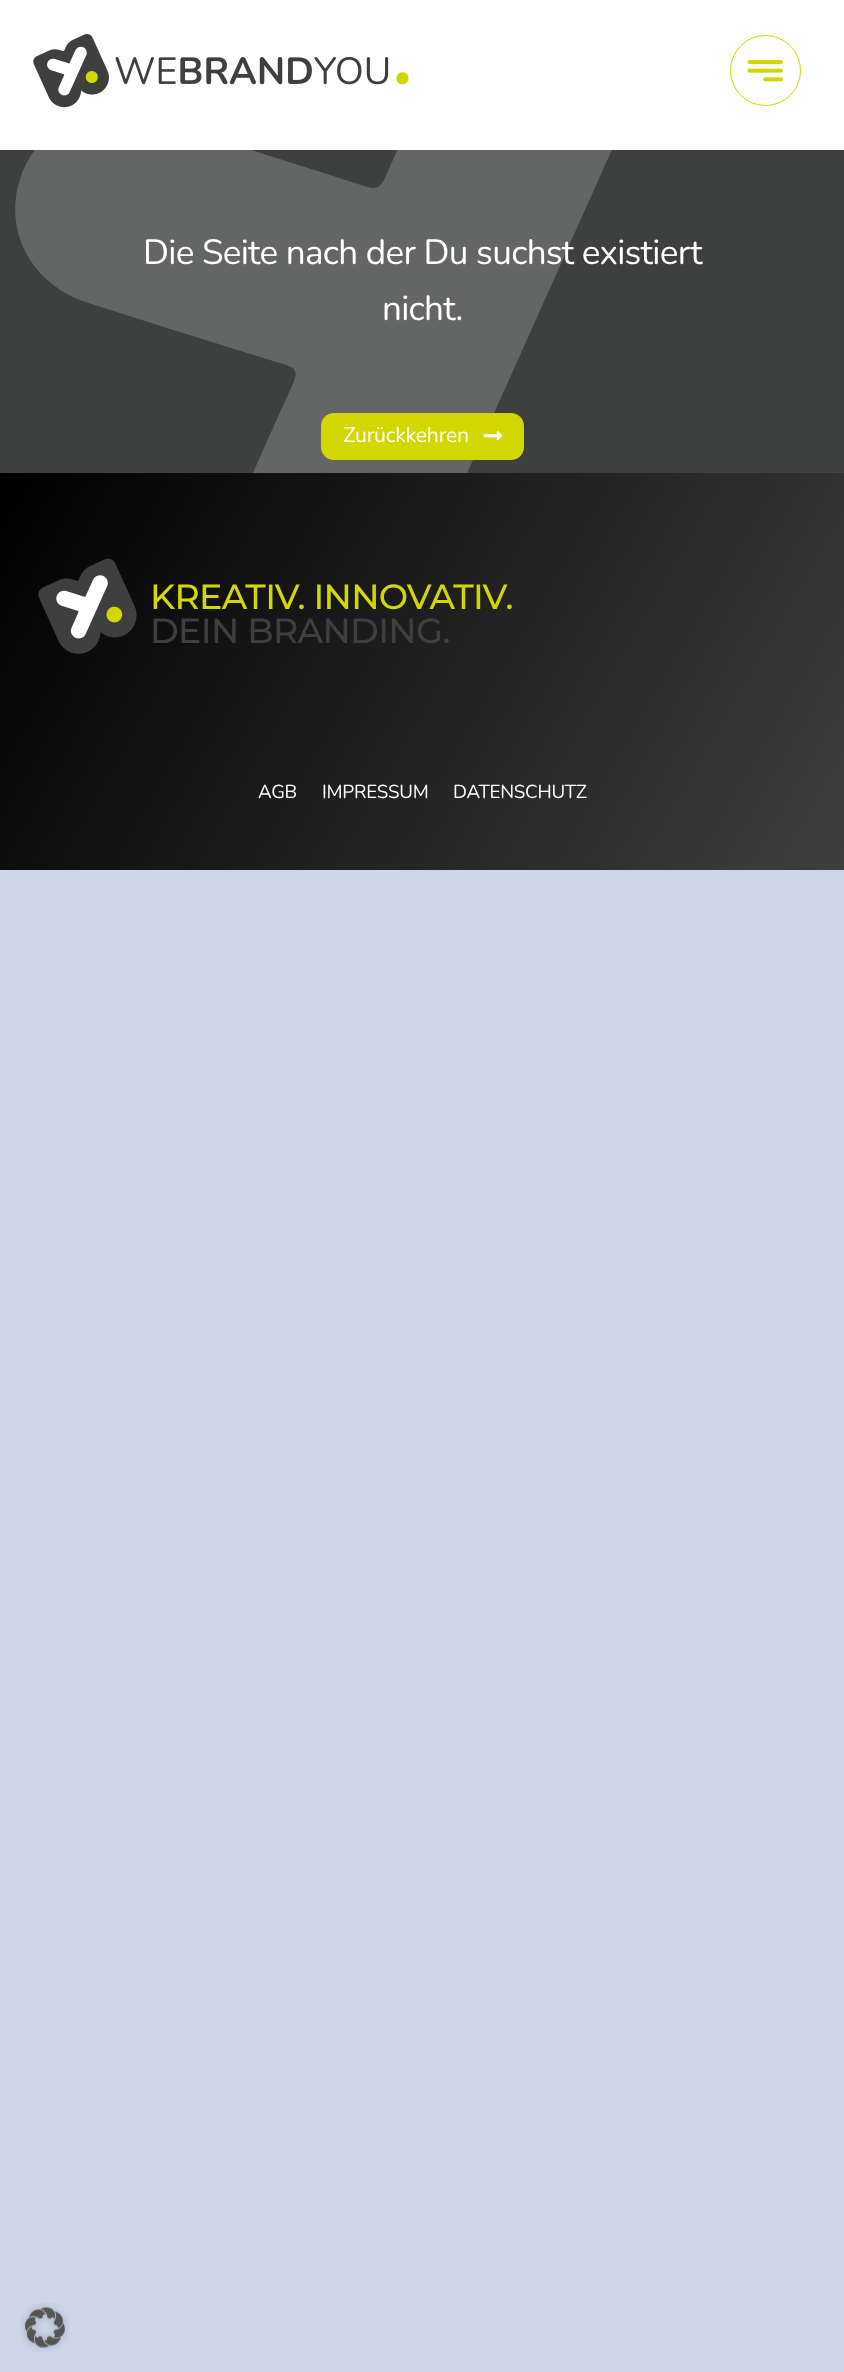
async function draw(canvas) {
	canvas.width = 844;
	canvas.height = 2372;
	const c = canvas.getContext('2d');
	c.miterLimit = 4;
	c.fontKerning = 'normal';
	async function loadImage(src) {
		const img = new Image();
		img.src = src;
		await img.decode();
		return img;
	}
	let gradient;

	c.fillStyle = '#ced6ea';
	c.fillRect(0, 0, 844, 2372);
	c.fillStyle = '#fff';
	c.fillRect(0, 0, 844, 150);
	c.drawImage(await loadImage('img1.png'), 33, 34, 376, 74);
	c.beginPath();
	c.arc(765.5, 70.5, 35, 0, 2 * Math.PI);
	c.strokeStyle = '#d2d700';
	c.stroke();
	c.drawImage(await loadImage('img2.png'), 747, 60, 36, 22);
	c.drawImage(await loadImage('img3.png'), 0, 150, 844, 323);
	c.letterSpacing = '-0.7px';
	c.font = '200 35px Nunito';
	c.fillText('Die Seite nach der Du suchst existiert', 143, 264);
	c.fillText('nicht.', 382, 320);
	c.fillStyle = '#d2d700';
	c.beginPath();
	c.roundRect(321, 413, 203, 47, 13);
	c.fill();
	c.letterSpacing = '-0.25px';
	c.font = '200 21.25px Nunito';
	c.fillStyle = '#fff';
	c.fillText('Zurückkehren', 343, 442);
	c.drawImage(await loadImage('img4.png'), 483, 431, 20, 10);
	gradient = c.createLinearGradient(20, 439, 825, 904);
	gradient.addColorStop(0, '#000');
	gradient.addColorStop(1, '#3f3f3f');
	c.fillStyle = gradient;
	c.fillRect(0, 473, 844, 397);
	c.drawImage(await loadImage('img5.png'), 38, 558, 99, 96);
	c.letterSpacing = '-0.7px';
	c.font = '500 34.9px Montserrat';
	c.fillStyle = '#d2d700';
	c.fillText('KREATIV. INNOVATIV.', 150, 609);
	c.fillStyle = '#3f3f3f';
	c.fillText('DEIN BRANDING.', 150, 643);
	c.letterSpacing = '-0.25px';
	c.font = '200 18.75px Nunito';
	c.fillStyle = '#fff';
	for (const [text, x, y] of [
		['AGB', 258, 798],
		['IMPRESSUM', 322, 798],
		['DATENSCHUTZ', 453, 798],
	]) {
		c.fillText(text, x, y);
	}
	c.drawImage(await loadImage('img6.png'), 20, 2303, 50, 49);
}

draw(document.querySelector('canvas'));
